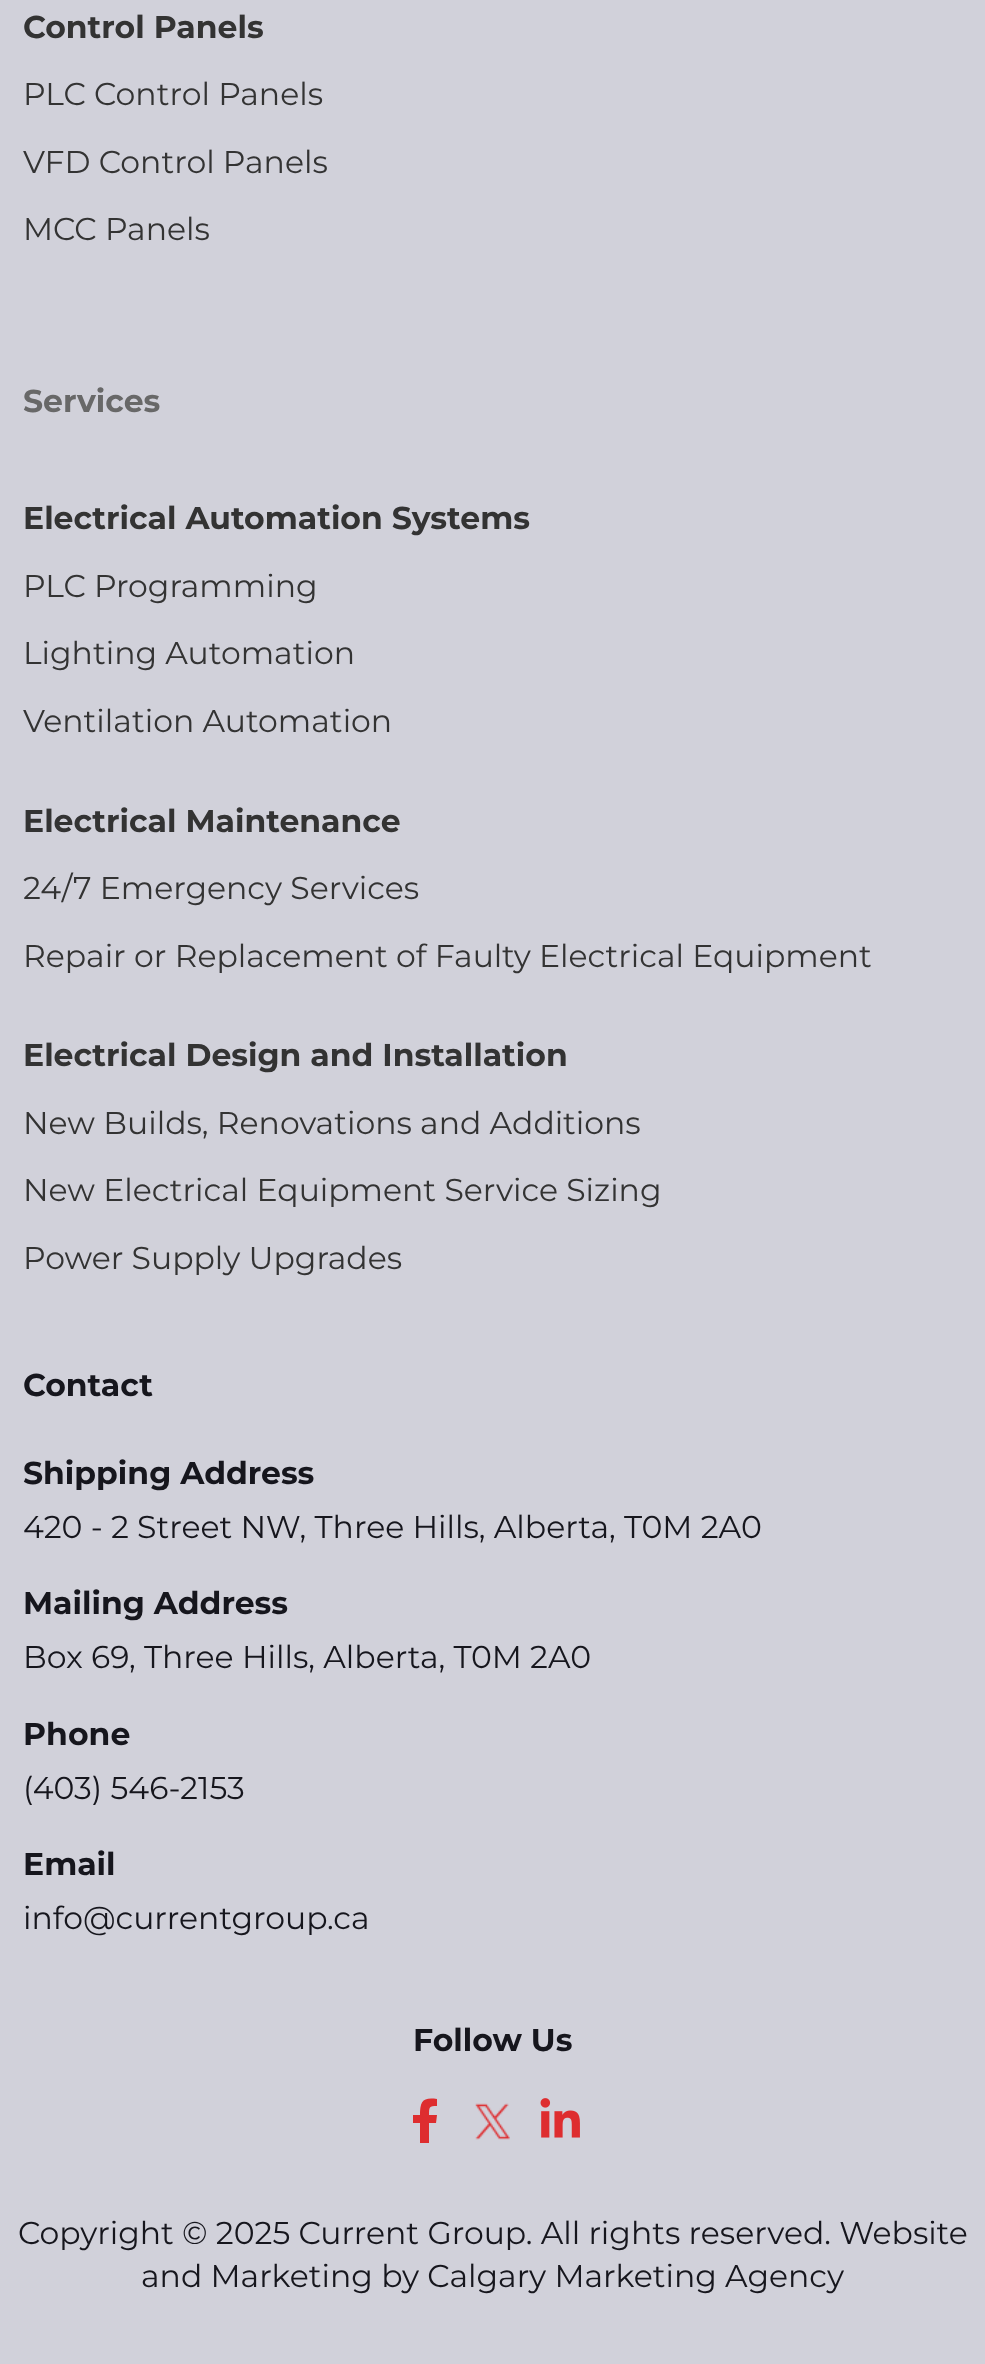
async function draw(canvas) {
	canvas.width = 985;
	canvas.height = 2364;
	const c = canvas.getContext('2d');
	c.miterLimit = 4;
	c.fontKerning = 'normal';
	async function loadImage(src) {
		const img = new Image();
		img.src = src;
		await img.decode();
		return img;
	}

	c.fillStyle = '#d1d1da';
	c.fillRect(0, 0, 985, 2364);
	c.font = 'bold 31.5px Montserrat';
	c.fillStyle = '#333';
	c.fillText('Control Panels', 23, 38);
	c.font = '31.5px Montserrat';
	for (const [text, x, y] of [
		['PLC Control Panels', 23, 105],
		['VFD Control Panels', 23, 173],
		['MCC Panels', 23, 240],
	]) {
		c.fillText(text, x, y);
	}
	c.font = 'bold 31.5px Montserrat';
	c.fillStyle = '#686868';
	c.fillText('Services', 23, 412);
	c.fillStyle = '#333';
	c.fillText('Electrical Automation Systems', 23, 529);
	c.font = '31.5px Montserrat';
	for (const [text, x, y] of [
		['PLC Programming', 23, 597],
		['Lighting Automation', 23, 664],
		['Ventilation Automation', 23, 732],
	]) {
		c.fillText(text, x, y);
	}
	c.font = 'bold 31.5px Montserrat';
	c.fillText('Electrical Maintenance', 23, 832);
	c.font = '31.5px Montserrat';
	c.fillText('24/7 Emergency Services', 23, 899);
	c.fillText('Repair or Replacement of Faulty Electrical Equipment', 23, 967);
	c.font = 'bold 31.5px Montserrat';
	c.fillText('Electrical Design and Installation', 23, 1066);
	c.font = '31.5px Montserrat';
	for (const [text, x, y] of [
		['New Builds, Renovations and Additions', 23, 1134],
		['New Electrical Equipment Service Sizing', 23, 1201],
		['Power Supply Upgrades', 23, 1269],
	]) {
		c.fillText(text, x, y);
	}
	c.font = 'bold 31.5px Montserrat';
	c.fillStyle = '#16161d';
	c.fillText('Contact', 23, 1396);
	c.fillText('Shipping Address', 23, 1484);
	c.font = '31.5px Montserrat';
	c.fillText('420 - 2 Street NW, Three Hills, Alberta, T0M 2A0', 23, 1538);
	c.font = 'bold 31.5px Montserrat';
	c.fillText('Mailing Address', 23, 1614);
	c.font = '31.5px Montserrat';
	c.fillText('Box 69, Three Hills, Alberta, T0M 2A0', 23, 1668);
	c.font = 'bold 31.5px Montserrat';
	c.fillText('Phone', 23, 1745);
	c.font = '31.5px Montserrat';
	c.fillText('(403) 546-2153', 23, 1799);
	c.font = 'bold 31.5px Montserrat';
	c.fillText('Email', 23, 1875);
	c.font = '31.5px Montserrat';
	c.fillText('info@currentgroup.ca', 23, 1929);
	c.font = 'bold 31.5px Montserrat';
	c.fillText('Follow Us', 413, 2051);
	c.fillStyle = '#de2d2f';
	c.beginPath();
	c.moveTo(436, 2123);
	c.lineTo(429, 2123);
	c.lineTo(429, 2143);
	c.lineTo(420, 2143);
	c.lineTo(420, 2123);
	c.lineTo(413, 2123);
	c.lineTo(413, 2115);
	c.lineTo(420, 2115);
	c.bezierCurveTo(420, 2101, 423, 2097, 437, 2099);
	c.lineTo(437, 2106);
	c.bezierCurveTo(429, 2106, 429, 2107, 429, 2115);
	c.lineTo(437, 2115);
	c.closePath();
	c.fill();
	c.drawImage(await loadImage('img1.png'), 475, 2103, 35, 37);
	c.drawImage(await loadImage('img2.png'), 540, 2098, 40, 40);
	c.font = '31.5px Montserrat';
	c.fillStyle = '#16161d';
	c.fillText('Copyright © 2025 Current Group. All rights reserved. Website', 18, 2244);
	c.fillText('and Marketing by Calgary Marketing Agency', 141, 2287);
}

draw(document.querySelector('canvas'));
